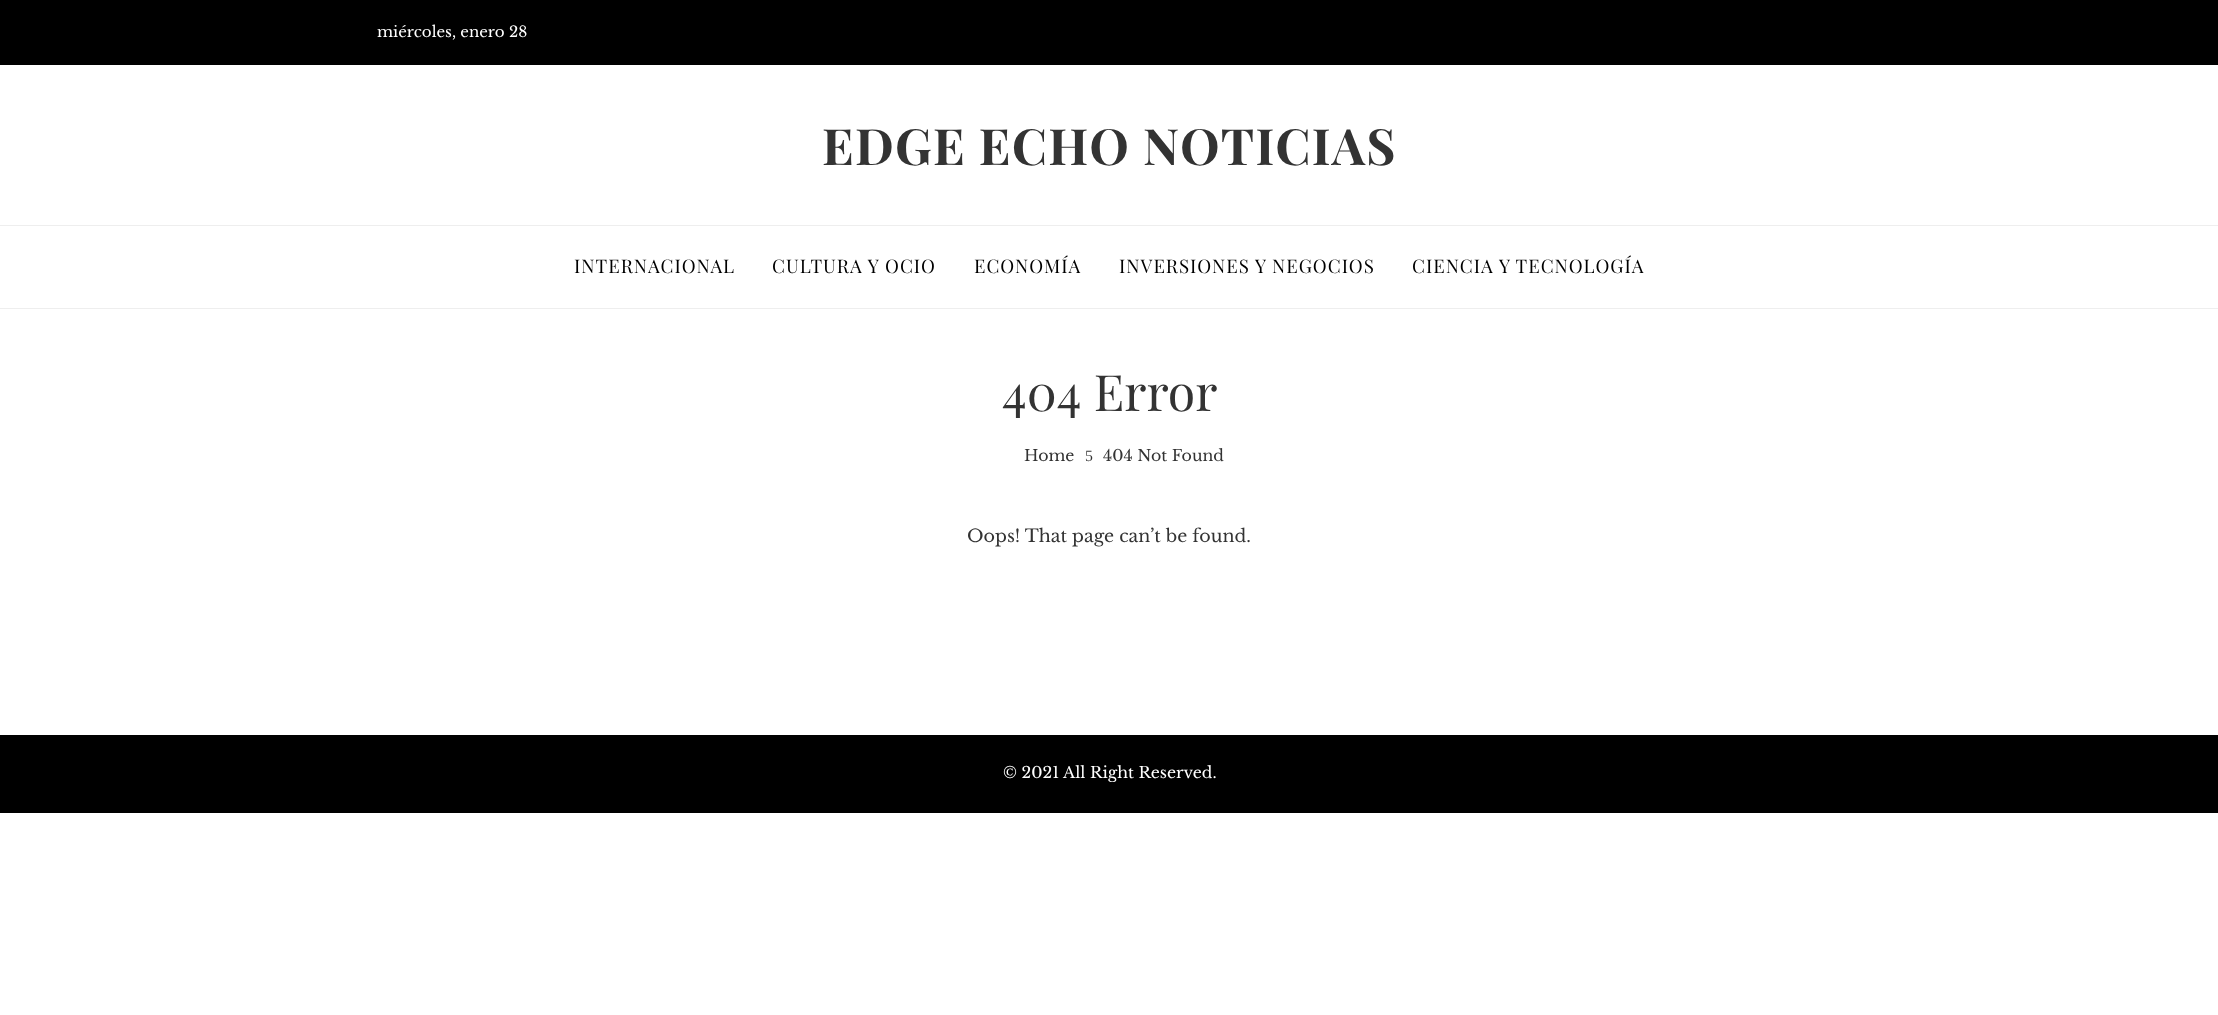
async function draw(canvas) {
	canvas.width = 2218;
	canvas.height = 1015;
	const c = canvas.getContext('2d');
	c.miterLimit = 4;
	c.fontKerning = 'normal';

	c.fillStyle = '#fff';
	c.fillRect(0, 0, 2218, 1015);
	c.fillStyle = '#000';
	c.fillRect(0, 0, 2218, 65);
	c.font = '15px Libre Baskerville';
	c.fillStyle = '#fff';
	c.fillText('miércoles, enero 28', 377, 37);
	c.letterSpacing = '1.25px';
	c.font = 'bold 50px Playfair Display';
	c.fillStyle = '#333';
	c.fillText('EDGE ECHO NOTICIAS', 822, 165);
	c.fillStyle = '#eee';
	c.fillRect(0, 225, 2218, 1);
	c.fillRect(0, 308, 2218, 1);
	c.letterSpacing = '1px';
	c.font = '18.75px Playfair Display';
	c.fillStyle = '#000';
	for (const [text, x, y] of [
		['INTERNACIONAL', 574, 273],
		['CULTURA Y OCIO', 772, 273],
		['ECONOMÍA', 974, 273],
		['INVERSIONES Y NEGOCIOS', 1119, 273],
		['CIENCIA Y TECNOLOGÍA', 1412, 273],
	]) {
		c.fillText(text, x, y);
	}
	c.letterSpacing = '0px';
	c.font = '50px Playfair Display';
	c.fillStyle = '#333';
	c.fillText('404 Error', 1002, 411);
	c.font = '15.75px Libre Baskerville';
	c.fillText('Home', 1024, 461);
	c.font = '15.75px Liberation Serif';
	c.fillText('5', 1085, 461);
	c.font = '15.75px Libre Baskerville';
	c.fillText('404 Not Found', 1103, 461);
	c.font = '17.5px Libre Baskerville';
	c.fillText('Oops! That page can’t be found.', 967, 542);
	c.fillStyle = '#000';
	c.fillRect(0, 735, 2218, 78);
	c.font = '15.75px Libre Baskerville';
	c.fillStyle = '#fff';
	c.fillText('© 2021 All Right Reserved.', 1003, 778);
}

draw(document.querySelector('canvas'));
